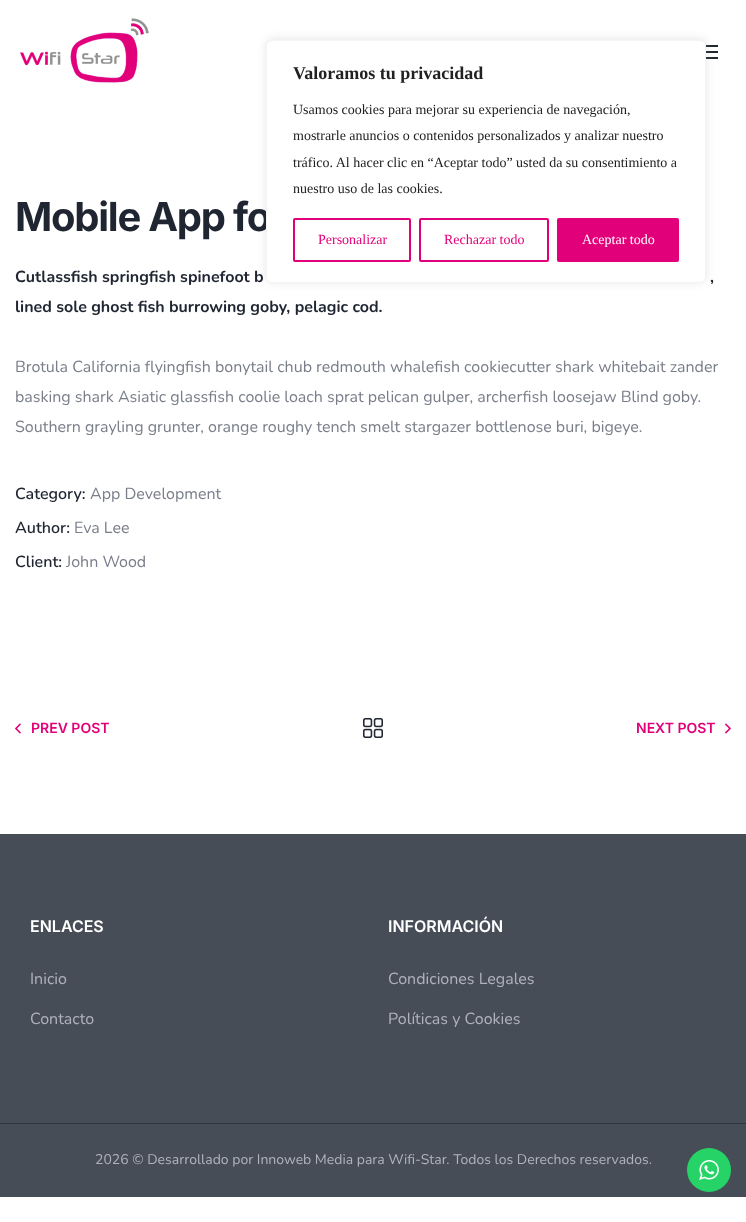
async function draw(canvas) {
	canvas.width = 746;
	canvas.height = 1222;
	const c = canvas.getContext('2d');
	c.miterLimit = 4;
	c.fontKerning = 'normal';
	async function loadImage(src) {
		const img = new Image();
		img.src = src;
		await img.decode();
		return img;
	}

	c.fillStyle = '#fff';
	c.fillRect(0, 0, 746, 1222);
	for (const [x, y, w, h, color] of [
		[705, 45, 13, 2, '#1f2531'],
		[706, 51, 12, 2, '#1f2531'],
		[706, 57, 12, 2, '#1f2531'],
	]) {
		c.fillStyle = color;
		c.fillRect(x, y, w, h);
	}
	c.fillStyle = '#acabab4d';
	c.filter = 'blur(5px)';
	c.beginPath();
	c.roundRect(266, 39, 440, 243, 6);
	c.fill();
	c.filter = 'none';
	c.letterSpacing = '-1.25px';
	c.font = 'bold 40px Inter';
	c.fillStyle = '#1f2531';
	c.fillText('Mobile App fo', 15, 231);
	c.fillStyle = '#fff';
	c.beginPath();
	c.roundRect(266.5, 40.5, 439, 242, 5.5);
	c.fill();
	c.strokeStyle = '#f4f4f4';
	c.stroke();
	c.letterSpacing = '0px';
	c.font = 'bold 18px Liberation Serif';
	c.fillStyle = '#212121';
	c.fillText('Valoramos tu privacidad', 293, 79);
	c.font = '14px Liberation Serif';
	for (const [text, x, y] of [
		['Usamos cookies para mejorar su experiencia de navegación,', 293, 114],
		['mostrarle anuncios o contenidos personalizados y analizar nuestro', 293, 140],
		['tráfico. Al hacer clic en “Aceptar todo” usted da su consentimiento a', 293, 167],
		['nuestro uso de las cookies.', 293, 193],
	]) {
		c.fillText(text, x, y);
	}
	c.beginPath();
	c.roundRect(294, 219, 116, 42, 1);
	c.strokeStyle = '#e2007a';
	c.lineWidth = 2;
	c.stroke();
	c.fillStyle = '#e2007a';
	c.fillText('Personalizar', 318, 244);
	c.beginPath();
	c.roundRect(420, 219, 128, 42, 1);
	c.stroke();
	c.fillText('Rechazar todo', 444, 244);
	c.beginPath();
	c.roundRect(558, 219, 120, 42, 1);
	c.fill();
	c.stroke();
	c.fillStyle = '#fff';
	c.fillText('Aceptar todo', 582, 244);
	c.drawImage(await loadImage('img1.png'), 20, 18, 129, 65);
	c.font = 'bold 16px Nunito';
	c.fillStyle = '#1f2531';
	for (const [text, x, y] of [
		['Cutlassfish springfish spinefoot b', 15, 282],
		[',', 710, 282],
		['lined sole ghost fish burrowing goby, pelagic cod.', 15, 312],
	]) {
		c.fillText(text, x, y);
	}
	c.font = '16px Nunito';
	c.fillStyle = '#797e89';
	for (const [text, x, y] of [
		['Brotula California flyingfish bonytail chub redmouth whalefish cookiecutter shark whitebait zander', 15, 372],
		['basking shark Asiatic glassfish coolie loach sprat pelican gulper, archerfish loosejaw Blind goby.', 15, 402],
		['Southern grayling grunter, orange roughy tench smelt stargazer bottlenose buri, bigeye.', 15, 432],
	]) {
		c.fillText(text, x, y);
	}
	c.font = '600 16px Nunito';
	c.fillStyle = '#1f2531';
	c.fillText('Category:', 15, 499);
	c.font = '16px Nunito';
	c.fillStyle = '#797e89';
	c.fillText('App Development', 90, 499);
	c.font = '600 16px Nunito';
	c.fillStyle = '#1f2531';
	c.fillText('Author:', 15, 533);
	c.font = '16px Nunito';
	c.fillStyle = '#797e89';
	c.fillText('Eva Lee', 74, 533);
	c.font = '600 16px Nunito';
	c.fillStyle = '#1f2531';
	c.fillText('Client:', 15, 567);
	c.font = '16px Nunito';
	c.fillStyle = '#797e89';
	c.fillText('John Wood', 66, 567);
	c.drawImage(await loadImage('img2.png'), 15, 723, 6, 11);
	c.font = '600 14px Inter';
	c.fillStyle = '#e2007a';
	c.fillText('PREV POST', 31, 733);
	c.drawImage(await loadImage('img3.png'), 363, 718, 20, 20);
	c.fillText('NEXT POST', 636, 733);
	c.drawImage(await loadImage('img4.png'), 725, 723, 6, 11);
	c.fillStyle = '#474d56';
	c.fillRect(0, 834, 746, 363);
	c.font = '600 16px Inter';
	c.fillStyle = '#fff';
	c.fillText('ENLACES', 30, 932);
	c.font = '16px Nunito';
	c.fillStyle = '#aeb3bd';
	c.fillText('Inicio', 30, 984);
	c.fillText('Contacto', 30, 1024);
	c.font = '600 16px Inter';
	c.fillStyle = '#fff';
	c.fillText('INFORMACIÓN', 388, 932);
	c.font = '16px Nunito';
	c.fillStyle = '#aeb3bd';
	c.fillText('Condiciones Legales', 388, 984);
	c.fillText('Políticas y Cookies', 388, 1024);
	c.fillStyle = '#2d3340';
	c.fillRect(0, 1123, 746, 1);
	c.font = '14px Nunito';
	c.fillStyle = '#aeb3bd';
	c.fillText('2026 © Desarrollado por Innoweb Media para Wifi-Star. Todos los Derechos reservados.', 95, 1164);
	c.fillStyle = '#25d366';
	c.beginPath();
	c.arc(709, 1170, 22, 0, 2 * Math.PI);
	c.fill();
	c.drawImage(await loadImage('img5.png'), 699, 1160, 20, 20);
}

draw(document.querySelector('canvas'));
